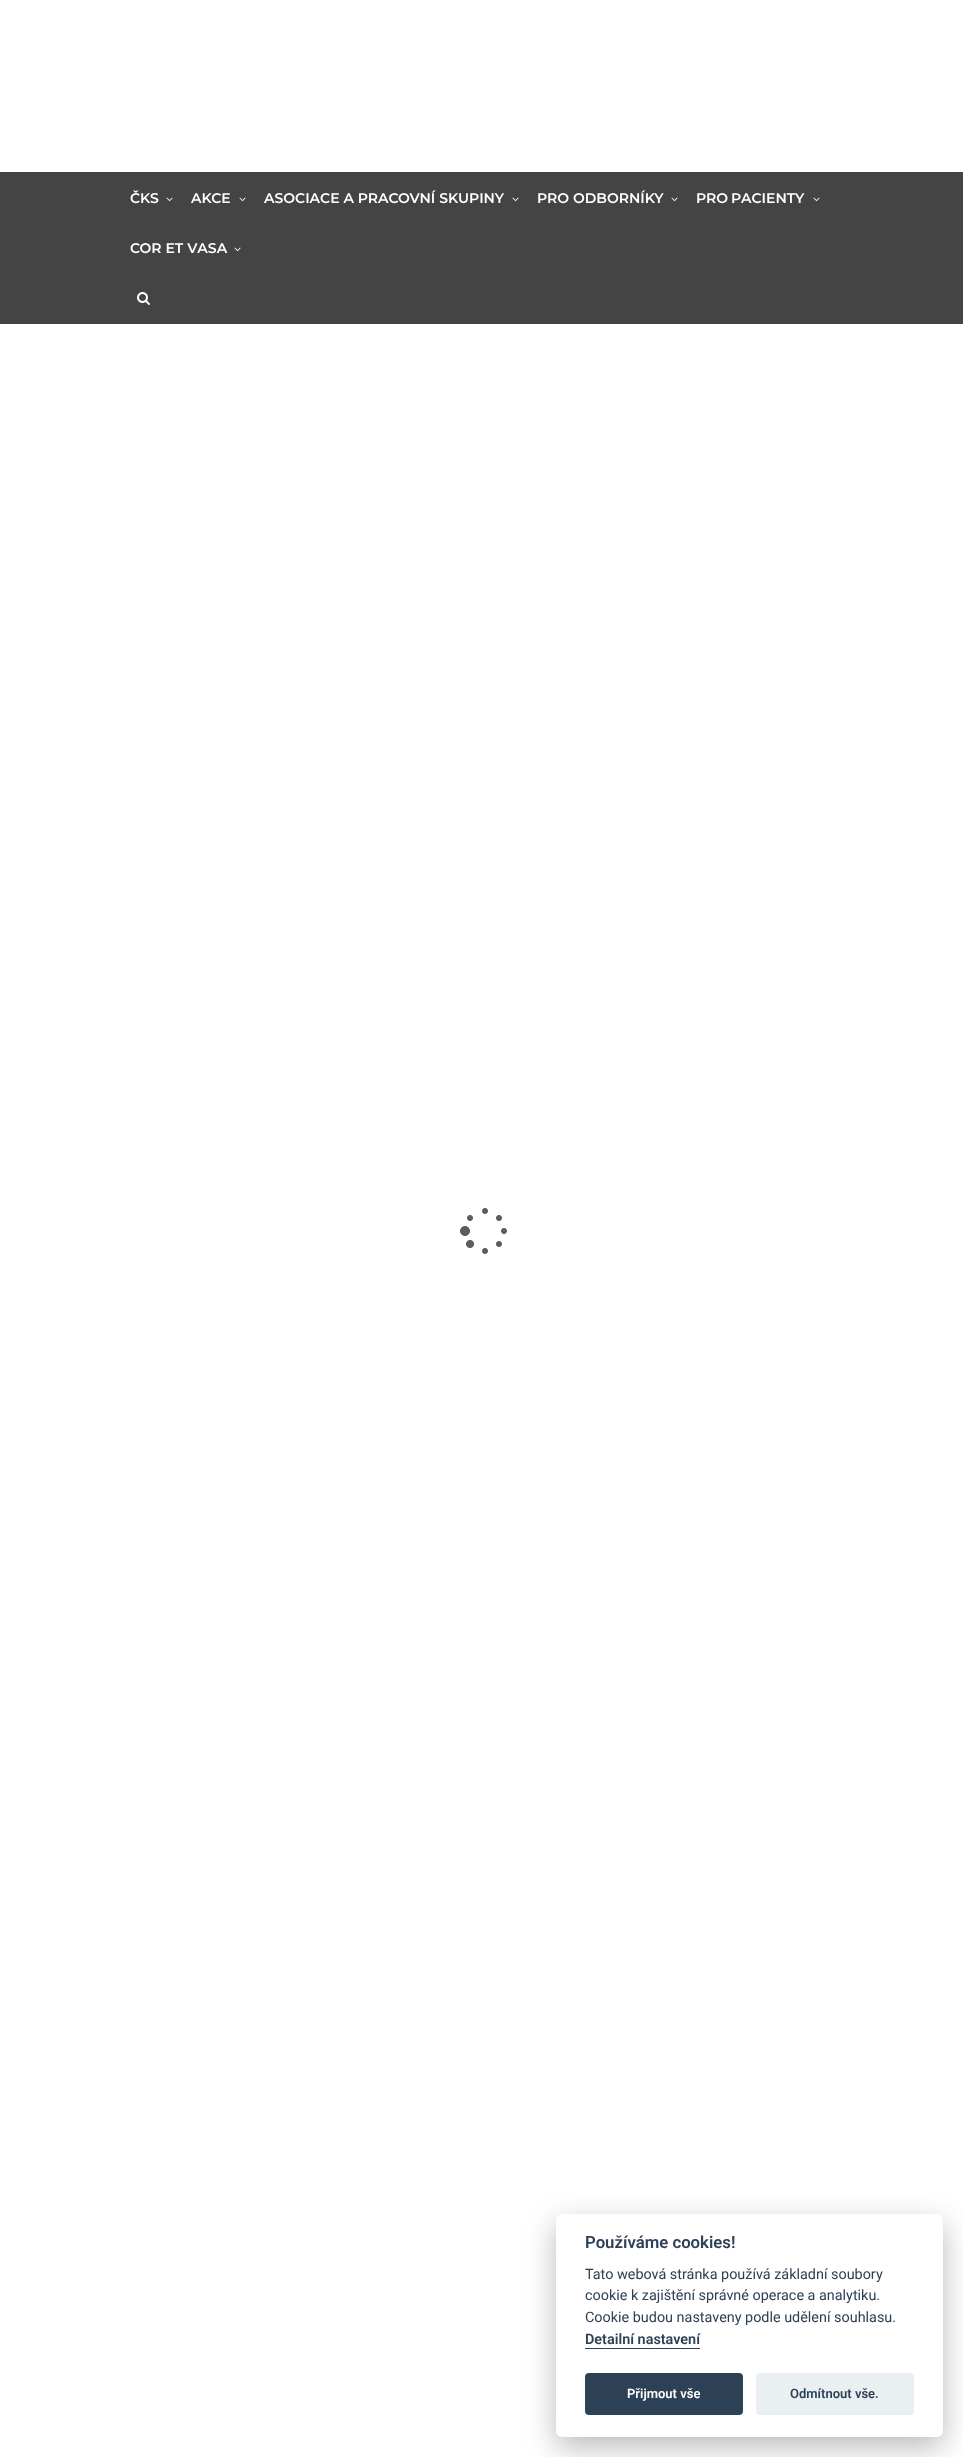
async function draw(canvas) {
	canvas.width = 963;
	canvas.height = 2457;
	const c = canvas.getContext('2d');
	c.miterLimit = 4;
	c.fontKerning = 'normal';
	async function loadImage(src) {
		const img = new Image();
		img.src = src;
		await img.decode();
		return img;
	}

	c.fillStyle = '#fff';
	c.fillRect(0, 0, 963, 2457);
	c.fillStyle = '#444';
	c.fillRect(0, 172, 963, 152);
	c.font = '600 14px Montserrat';
	c.fillStyle = '#fff';
	c.fillText('ČKS', 130, 203);
	c.drawImage(await loadImage('img1.png'), 166, 197, 7, 5);
	c.fillText('AKCE', 191, 203);
	c.drawImage(await loadImage('img1.png'), 239, 197, 7, 5);
	c.fillText('ASOCIACE A PRACOVNÍ SKUPINY', 264, 203);
	c.drawImage(await loadImage('img1.png'), 512, 197, 7, 5);
	c.fillText('PRO ODBORNÍKY', 537, 203);
	c.drawImage(await loadImage('img1.png'), 671, 197, 7, 5);
	c.wordSpacing = '-1px';
	c.fillText('PRO PACIENTY', 696, 203);
	c.drawImage(await loadImage('img1.png'), 813, 197, 7, 5);
	c.wordSpacing = '0px';
	c.fillText('COR ET VASA', 130, 253);
	c.drawImage(await loadImage('img1.png'), 234, 247, 7, 5);
	c.drawImage(await loadImage('img2.png'), 137, 292, 13, 13);
	c.drawImage(await loadImage('img3.png'), 460, 1208, 47, 46);
	c.fillStyle = '#02020347';
	c.filter = 'blur(15px)';
	c.beginPath();
	c.roundRect(556, 2224, 387, 223, 6);
	c.fill();
	c.filter = 'none';
	c.fillStyle = '#fff';
	c.beginPath();
	c.roundRect(556, 2214, 387, 223, 6);
	c.fill();
	c.font = '600 16.75px Roboto';
	c.fillStyle = '#2d4156';
	c.fillText('Používáme cookies!', 585, 2248);
	c.font = '14.4px Roboto';
	for (const [text, x, y] of [
		['Tato webová stránka používá základní soubory', 585, 2279],
		['cookie k zajištění správné operace a analytiku.', 585, 2300],
		['Cookie budou nastaveny podle udělení souhlasu.', 585, 2322],
	]) {
		c.fillText(text, x, y);
	}
	c.font = '600 14.4px Roboto';
	c.fillText('Detailní nastavení', 585, 2344);
	c.fillRect(585, 2348, 115, 1);
	c.beginPath();
	c.roundRect(585, 2373, 158, 42, 4);
	c.fill();
	c.font = '600 13px Roboto';
	c.fillStyle = '#fff';
	c.fillText('Přijmout vše', 627, 2398);
	c.fillStyle = '#eaeff2';
	c.beginPath();
	c.roundRect(756, 2373, 158, 42, 4);
	c.fill();
	c.fillStyle = '#2d4156';
	c.fillText('Odmítnout vše.', 790, 2398);
}

draw(document.querySelector('canvas'));
